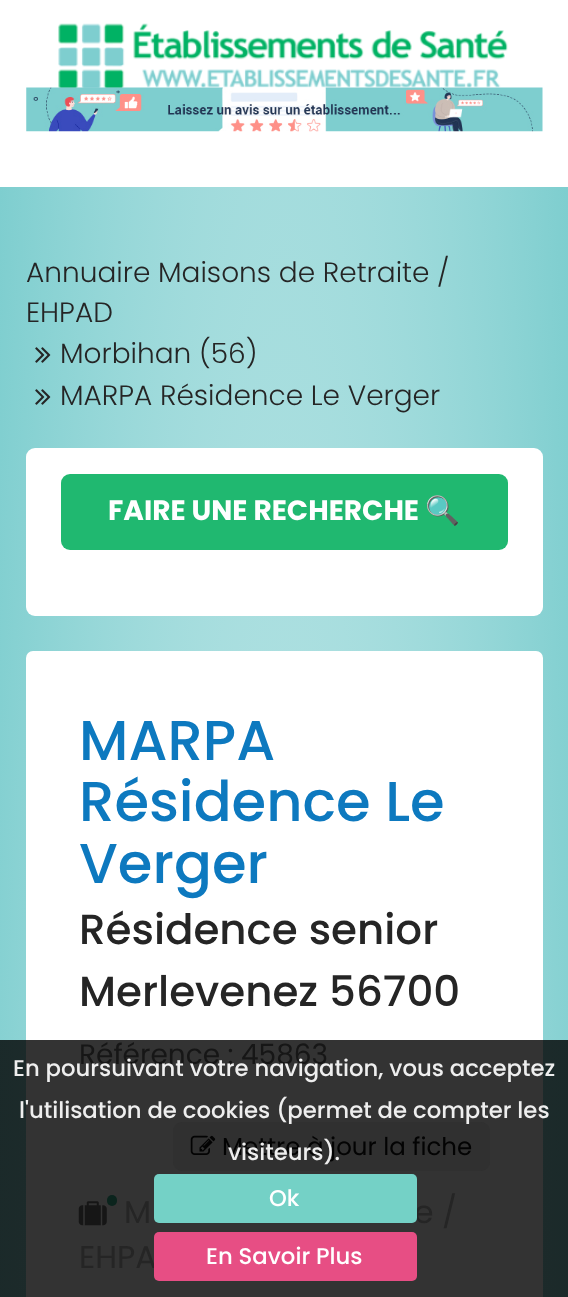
async function draw(canvas) {
	canvas.width = 568;
	canvas.height = 1297;
	const c = canvas.getContext('2d');
	c.miterLimit = 4;
	c.fontKerning = 'normal';
	async function loadImage(src) {
		const img = new Image();
		img.src = src;
		await img.decode();
		return img;
	}
	let gradient;

	c.fillStyle = '#fff';
	c.fillRect(0, 0, 568, 1297);
	c.drawImage(await loadImage('img1.png'), 58, 23, 450, 65);
	c.drawImage(await loadImage('img2.png'), 26, 87, 517, 45);
	gradient = c.createRadialGradient(284, 292.61, 0, 284, 292.61, 402);
	gradient.addColorStop(0, '#fff');
	gradient.addColorStop(1, '#7ececf');
	c.fillStyle = gradient;
	c.beginPath();
	c.rect(0, 187, 568, 853);
	c.save();
	c.clip();
	c.scale(1, 9000 / 402);
	c.fillRect(0, 0, 568, 58);
	c.restore();
	gradient = c.createRadialGradient(284, 292.61, 0, 284, 292.61, 402);
	gradient.addColorStop(0, '#333');
	gradient.addColorStop(1, '#192929');
	c.fillStyle = gradient;
	c.beginPath();
	c.rect(0, 1040, 568, 257);
	c.save();
	c.clip();
	c.scale(1, 9000 / 402);
	c.fillRect(0, 0, 568, 58);
	c.restore();
	c.font = '300 28px Poppins';
	c.fillStyle = '#252525';
	c.fillText('Annuaire Maisons de Retraite /', 26, 282);
	c.fillText('EHPAD', 26, 322);
	c.drawImage(await loadImage('img3.png'), 35, 347, 16, 16);
	c.fillText('Morbihan (56)', 60, 363);
	c.drawImage(await loadImage('img4.png'), 35, 389, 16, 16);
	c.fillText('MARPA Résidence Le Verger', 60, 405);
	c.fillStyle = '#fff';
	c.beginPath();
	c.roundRect(26, 448, 517, 168, 9);
	c.fill();
	c.fillStyle = '#20b870';
	c.beginPath();
	c.roundRect(61, 474, 447, 76, 9);
	c.fill();
	c.font = 'bold 28px Poppins';
	c.fillStyle = '#fff';
	c.fillText('FAIRE UNE RECHERCHE', 108, 520);
	c.font = 'bold 28px Noto Color Emoji';
	c.fillText('🔍', 425, 520);
	c.beginPath();
	c.roundRect(26, 651, 517, 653, 7);
	c.fill();
	c.fillStyle = '#333';
	c.fillRect(26, 1040, 517, 257);
	c.font = '500 56px Poppins';
	c.fillStyle = '#0d79bf';
	for (const [text, x, y] of [
		['MARPA', 79, 760],
		['Résidence Le', 79, 821],
		['Verger', 79, 883],
	]) {
		c.fillText(text, x, y);
	}
	c.font = '500 42px Poppins';
	c.fillStyle = '#252525';
	c.fillText('Résidence senior', 79, 944);
	c.fillText('Merlevenez 56700', 79, 1006);
	c.font = '28px Poppins';
	c.fillStyle = '#161616';
	c.fillText('Référence : 45863', 79, 1064);
	c.fillStyle = '#303030';
	c.beginPath();
	c.roundRect(173, 1122, 317, 49, 9);
	c.fill();
	c.drawImage(await loadImage('img5.png'), 190, 1135, 26, 20);
	c.font = '24.5px Poppins';
	c.fillStyle = '#030303';
	c.fillText('Mettre à jour la fiche', 222, 1155);
	c.drawImage(await loadImage('img6.png'), 78, 1201, 29, 25);
	c.fillStyle = '#0b241d';
	c.beginPath();
	c.roundRect(107, 1195, 10, 11, 5);
	c.fill();
	c.font = '31.5px Poppins';
	c.fillStyle = '#252525';
	for (const [text, x, y] of [
		['M', 124, 1223],
		['e /', 414, 1223],
		['EHPA', 79, 1268],
	]) {
		c.fillText(text, x, y);
	}
	c.font = '500 22.75px Poppins';
	c.fillStyle = '#eee';
	for (const [text, x, y] of [
		['En poursuivant votre navigation, vous acceptez', 13, 1076],
		['l\'utilisation de cookies (permet de compter les', 19, 1118],
		['visiteurs).', 228, 1160],
	]) {
		c.fillText(text, x, y);
	}
	c.fillStyle = '#74d1c6';
	c.beginPath();
	c.roundRect(154, 1174, 263, 49, 5);
	c.fill();
	c.fillStyle = '#fff';
	c.fillText('Ok', 269, 1206);
	c.fillStyle = '#e74e84';
	c.beginPath();
	c.roundRect(154, 1232, 263, 49, 5);
	c.fill();
	c.fillStyle = '#fff';
	c.fillText('En Savoir Plus', 206, 1264);
}

draw(document.querySelector('canvas'));
